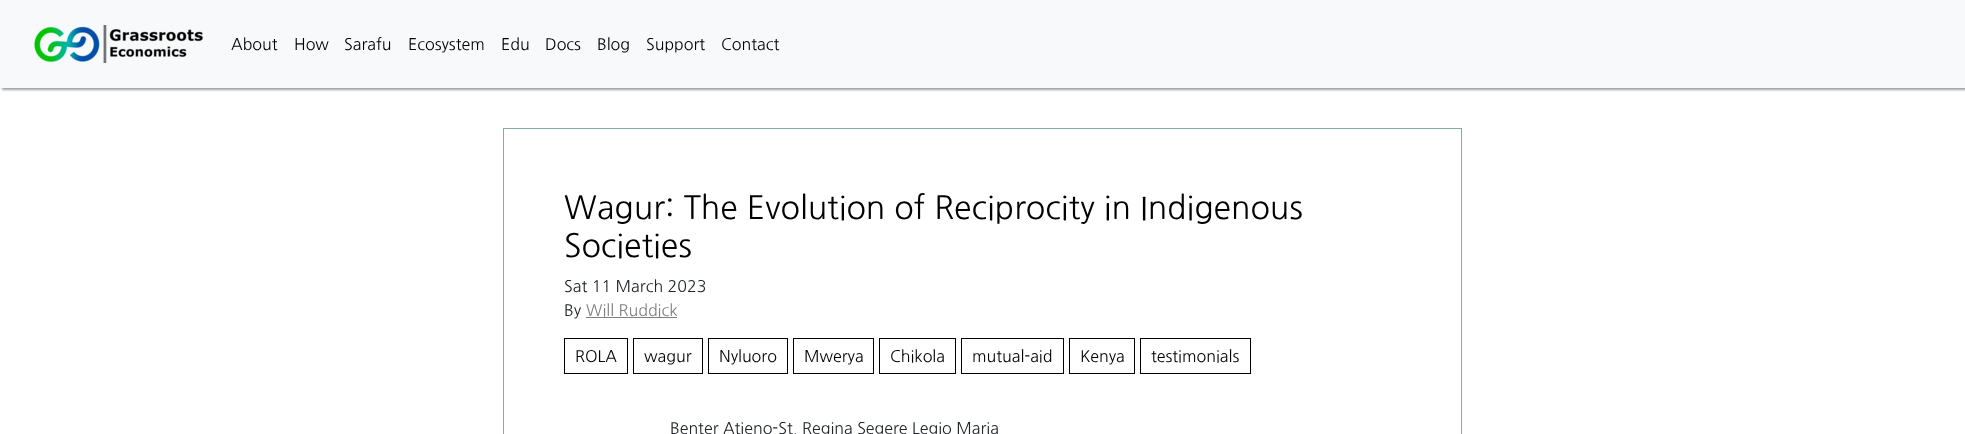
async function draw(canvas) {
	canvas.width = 1965;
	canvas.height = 434;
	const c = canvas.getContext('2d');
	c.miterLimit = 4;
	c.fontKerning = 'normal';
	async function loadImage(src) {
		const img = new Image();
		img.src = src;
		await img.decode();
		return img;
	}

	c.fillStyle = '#fff';
	c.fillRect(0, 0, 1965, 434);
	c.fillStyle = '#a1a1a1';
	c.filter = 'blur(1px)';
	c.beginPath();
	c.rect(2, 2, 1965, 88);
	c.fill();
	c.filter = 'none';
	c.fillStyle = '#f8f9fa';
	c.fillRect(0, 0, 1965, 88);
	c.drawImage(await loadImage('img1.png'), 34, 25, 169, 38);
	c.font = '16px NanumGothic';
	c.fillStyle = '#000';
	for (const [text, x, y] of [
		['About', 231, 50],
		['How', 294, 50],
		['Sarafu', 344, 50],
		['Ecosystem', 408, 50],
		['Edu', 501, 50],
		['Docs', 545, 50],
		['Blog', 597, 50],
		['Support', 646, 50],
		['Contact', 721, 50],
	]) {
		c.fillText(text, x, y);
	}
	c.strokeStyle = '#85adad';
	c.strokeRect(503.5, 128.5, 958, 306);
	c.font = '32px NanumGothic';
	c.fillText('Wagur: The Evolution of Reciprocity in Indigenous', 564, 219);
	c.fillText('Societies', 564, 257);
	c.font = '16px NanumGothic';
	c.fillStyle = '#212529';
	c.fillText('Sat 11 March 2023', 564, 292);
	c.fillText('By', 564, 316);
	c.fillStyle = '#808080';
	c.fillText('Will Ruddick', 586, 316);
	c.fillRect(586, 317, 91, 1);
	c.strokeStyle = '#000';
	c.strokeRect(564.5, 338.5, 63, 35);
	c.fillStyle = '#000';
	c.fillText('ROLA', 575, 362);
	c.strokeRect(633.5, 338.5, 69, 35);
	c.fillText('wagur', 644, 362);
	c.strokeRect(708.5, 338.5, 79, 35);
	c.fillText('Nyluoro', 719, 362);
	c.strokeRect(793.5, 338.5, 80, 35);
	c.fillText('Mwerya', 804, 362);
	c.strokeRect(879.5, 338.5, 76, 35);
	c.fillText('Chikola', 890, 362);
	c.strokeRect(961.5, 338.5, 102, 35);
	c.fillText('mutual-aid', 972, 362);
	c.strokeRect(1069.5, 338.5, 65, 35);
	c.fillText('Kenya', 1080, 362);
	c.strokeRect(1140.5, 338.5, 110, 35);
	c.fillText('testimonials', 1151, 362);
	c.fillStyle = '#212529';
	c.fillText('Benter Atieno-St. Regina Segere Legio Maria', 670, 434);
}

draw(document.querySelector('canvas'));
